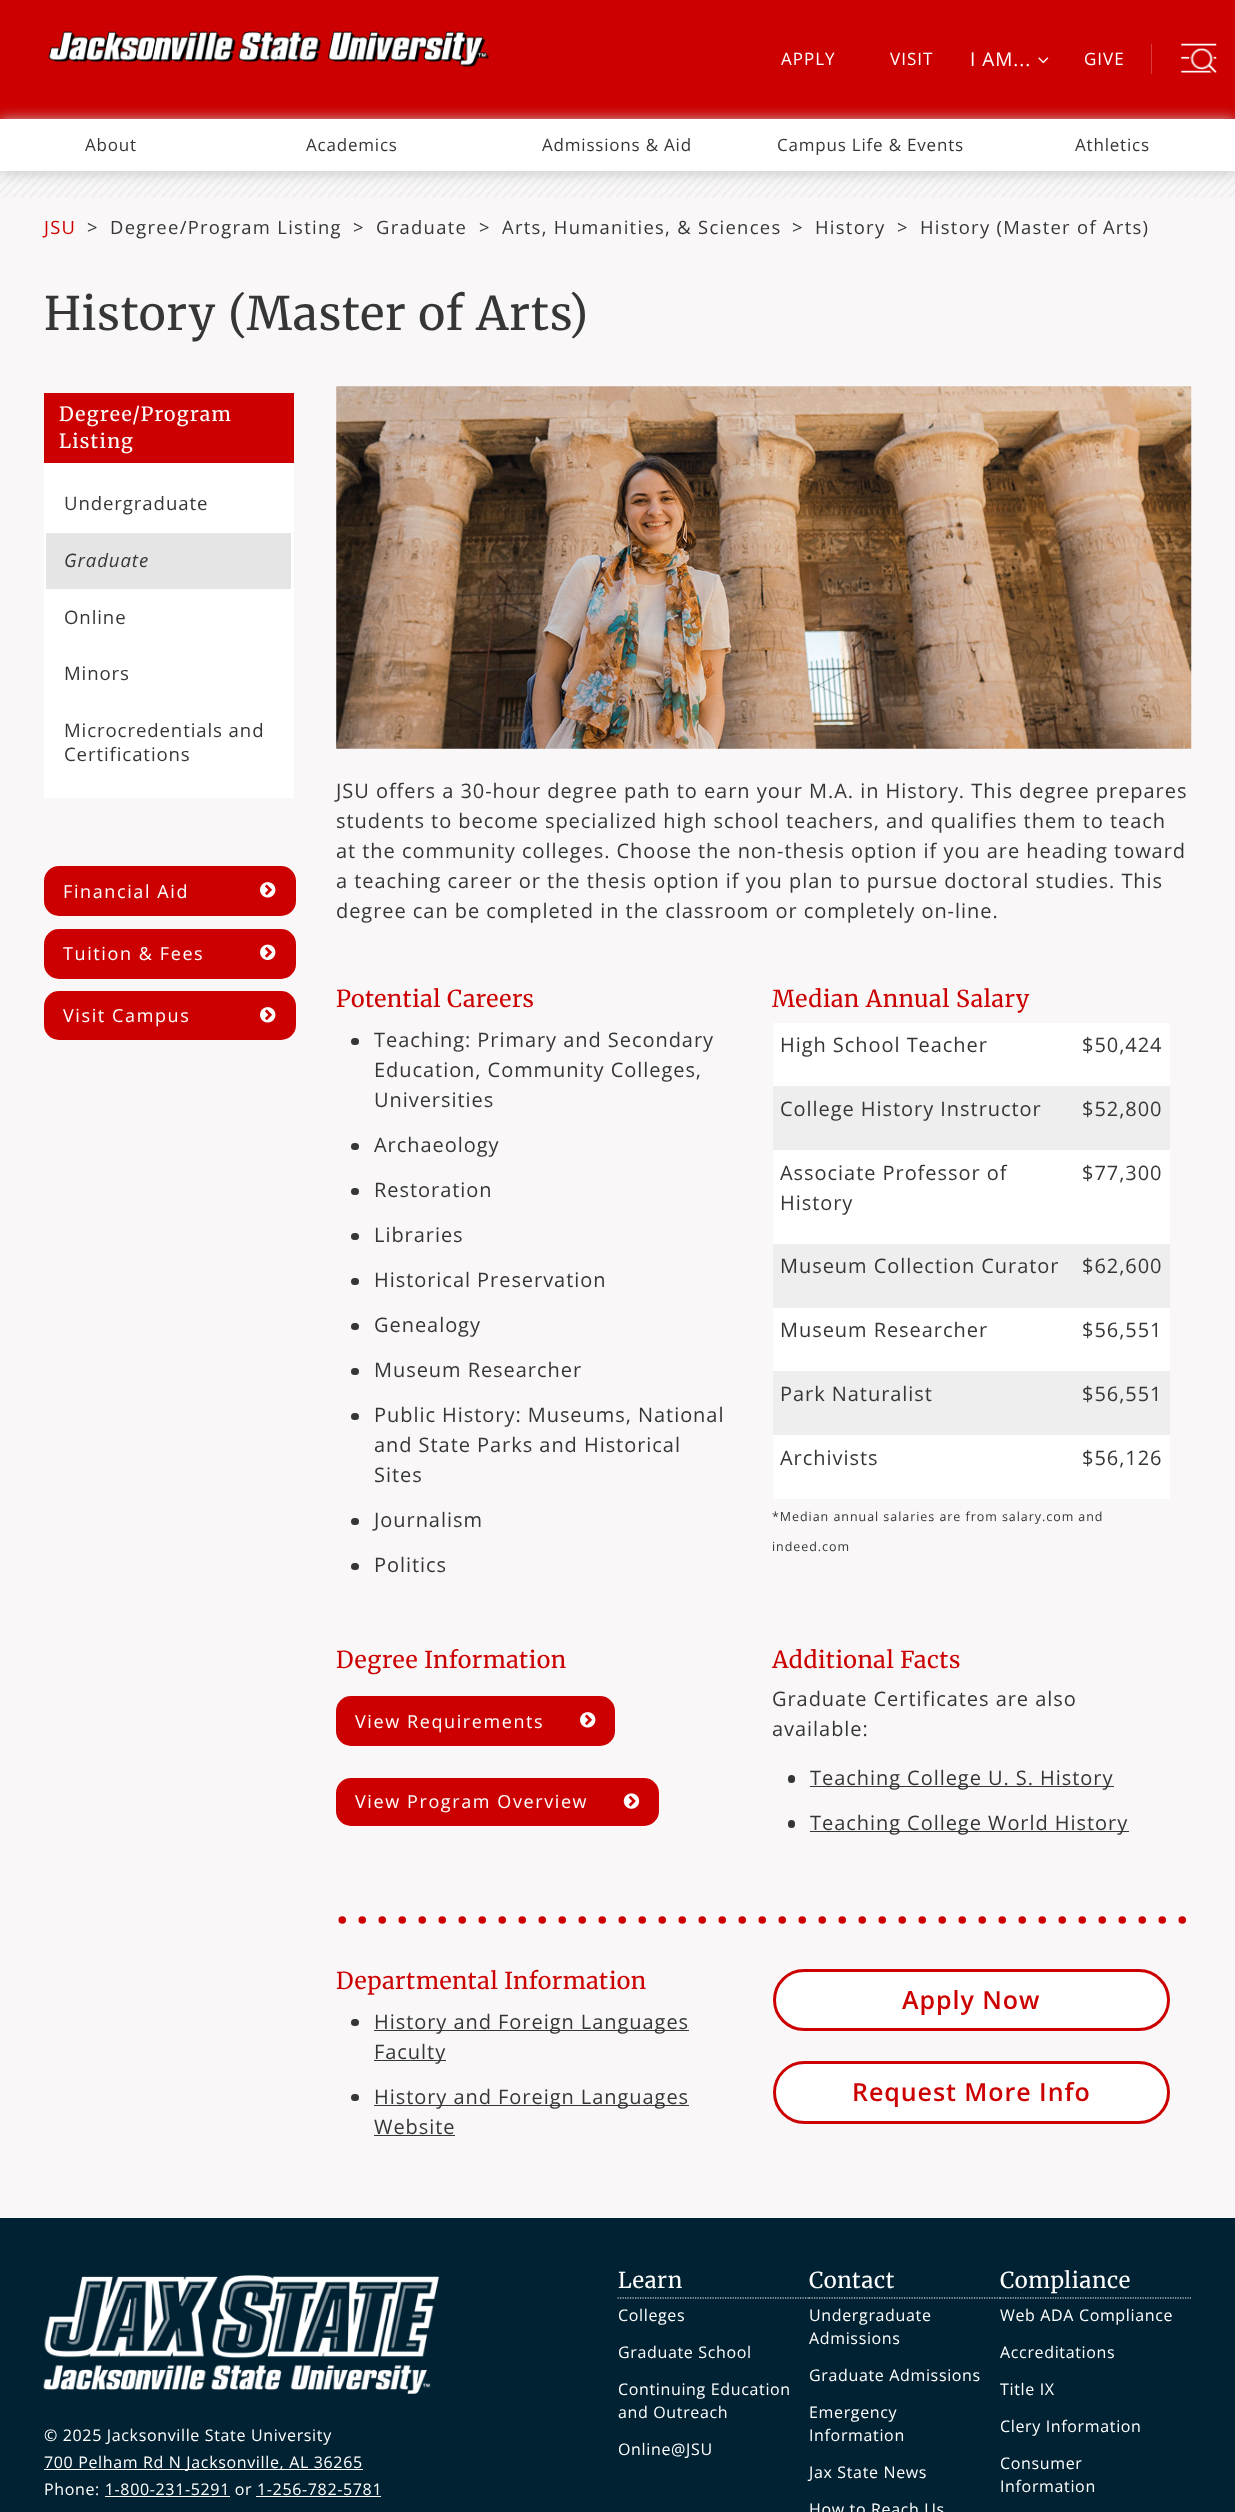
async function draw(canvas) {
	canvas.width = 1235;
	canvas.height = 2512;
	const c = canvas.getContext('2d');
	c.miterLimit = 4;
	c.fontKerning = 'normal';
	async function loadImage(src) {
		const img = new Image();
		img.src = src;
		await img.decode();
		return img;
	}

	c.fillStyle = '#f9f7f8';
	c.fillRect(0, 0, 1235, 2512);
	c.fillStyle = '#c00';
	c.fillRect(0, 0, 1235, 119);
	c.drawImage(await loadImage('img1.png'), 48, 31, 441, 37);
	c.letterSpacing = '1px';
	c.font = '17px Open Sans';
	c.fillStyle = '#fff';
	c.fillText('APPLY', 781, 65);
	c.fillText('VISIT', 890, 65);
	c.font = '19px Open Sans';
	c.fillText('I AM...', 970, 66);
	c.drawImage(await loadImage('img2.png'), 1038, 57, 11, 7);
	c.font = '17px Open Sans';
	c.fillText('GIVE', 1084, 65);
	c.fillStyle = '#da3d3d';
	c.fillRect(1151, 44, 1, 30);
	c.drawImage(await loadImage('img3.png'), 1181, 43, 36, 30);
	c.drawImage(await loadImage('img4.png'), 0, 172, 1235, 26);
	c.fillStyle = '#c6c6c6';
	c.filter = 'blur(7px)';
	c.beginPath();
	c.rect(0, 120, 1235, 53);
	c.fill();
	c.filter = 'none';
	c.fillStyle = '#fff';
	c.fillRect(0, 119, 1235, 52);
	c.letterSpacing = '0.8px';
	c.fillStyle = '#363636';
	for (const [text, x, y] of [
		['About', 85, 151],
		['Academics', 306, 151],
		['Admissions & Aid', 542, 151],
		['Campus Life & Events', 777, 151],
		['Athletics', 1075, 151],
	]) {
		c.fillText(text, x, y);
	}
	c.letterSpacing = '1.3px';
	c.font = '18.4px Open Sans';
	c.fillStyle = '#c00';
	c.fillText('JSU', 44, 234);
	c.fillStyle = '#363636';
	for (const [text, x, y] of [
		['>', 87, 234],
		['Degree/Program Listing', 110, 234],
		['>', 353, 234],
		['Graduate', 376, 234],
		['>', 479, 234],
		['Arts, Humanities, & Sciences', 502, 234],
		['>', 792, 234],
		['History', 815, 234],
		['>', 897, 234],
		['History (Master of Arts)', 920, 234],
	]) {
		c.fillText(text, x, y);
	}
	c.letterSpacing = '0.9px';
	c.font = '300 46px Merriweather';
	c.fillText('History (Master of Arts)', 44, 330);
	c.fillStyle = '#fff';
	c.fillRect(44, 463, 250, 335);
	c.fillStyle = '#c00';
	c.fillRect(44, 393, 250, 70);
	c.letterSpacing = '1.25px';
	c.font = '300 19.5px Merriweather';
	c.fillStyle = '#fff';
	c.fillText('Degree/Program', 59, 421);
	c.fillText('Listing', 59, 448);
	c.letterSpacing = '0.9px';
	c.font = '18.6px Open Sans';
	c.fillStyle = '#363636';
	c.fillText('Undergraduate', 64, 510);
	c.fillStyle = '#e5e5e5';
	c.fillRect(46, 533, 245, 56);
	c.font = 'italic 18.6px Open Sans';
	c.fillStyle = '#363636';
	c.fillText('Graduate', 64, 567);
	c.font = '18.6px Open Sans';
	for (const [text, x, y] of [
		['Online', 64, 624],
		['Minors', 64, 680],
		['Microcredentials and', 64, 737],
		['Certifications', 64, 761],
	]) {
		c.fillText(text, x, y);
	}
	c.fillStyle = '#c00';
	c.beginPath();
	c.roundRect(44, 866, 252, 50, 15);
	c.fill();
	c.letterSpacing = '1.6px';
	c.font = '18px Open Sans';
	c.fillStyle = '#fff';
	c.fillText('Financial Aid', 63, 898);
	c.drawImage(await loadImage('img5.png'), 260, 882, 16, 16);
	c.fillStyle = '#c00';
	c.beginPath();
	c.roundRect(44, 929, 252, 50, 15);
	c.fill();
	c.fillStyle = '#fff';
	c.fillText('Tuition & Fees', 63, 960);
	c.drawImage(await loadImage('img6.png'), 260, 944, 16, 16);
	c.fillStyle = '#c00';
	c.beginPath();
	c.roundRect(44, 991, 252, 49, 15);
	c.fill();
	c.fillStyle = '#fff';
	c.fillText('Visit Campus', 63, 1022);
	c.drawImage(await loadImage('img5.png'), 260, 1007, 16, 16);
	c.drawImage(await loadImage('img7.png'), 336, 386, 856, 363);
	c.letterSpacing = '0.95px';
	c.font = '20px Open Sans';
	c.fillStyle = '#363636';
	for (const [text, x, y] of [
		['JSU offers a 30-hour degree path to earn your M.A. in History. This degree prepares', 336, 798],
		['students to become specialized high school teachers, and qualifies them to teach', 336, 828],
		['at the community colleges. Choose the non-thesis option if you are heading toward', 336, 858],
		['a teaching career or the thesis option if you plan to pursue doctoral studies. This', 336, 888],
		['degree can be completed in the classroom or completely on-line.', 336, 918],
	]) {
		c.fillText(text, x, y);
	}
	c.letterSpacing = '0.5px';
	c.font = '300 23.25px Merriweather';
	c.fillStyle = '#c00';
	c.fillText('Potential Careers', 336, 1007);
	c.fillStyle = '#363636';
	c.beginPath();
	c.roundRect(351, 1038, 8, 7, 3.5);
	c.fill();
	c.letterSpacing = '0.95px';
	c.font = '20px Open Sans';
	for (const [text, x, y] of [
		['Teaching: Primary and Secondary', 374, 1047],
		['Education, Community Colleges,', 374, 1077],
		['Universities', 374, 1107],
	]) {
		c.fillText(text, x, y);
	}
	c.beginPath();
	c.roundRect(351, 1143, 8, 7, 3.5);
	c.fill();
	c.fillText('Archaeology', 374, 1152);
	c.beginPath();
	c.roundRect(351, 1188, 8, 7, 3.5);
	c.fill();
	c.fillText('Restoration', 374, 1197);
	c.beginPath();
	c.roundRect(351, 1233, 8, 7, 3.5);
	c.fill();
	c.fillText('Libraries', 374, 1242);
	c.beginPath();
	c.roundRect(351, 1278, 8, 7, 3.5);
	c.fill();
	c.fillText('Historical Preservation', 374, 1287);
	c.beginPath();
	c.roundRect(351, 1323, 8, 7, 3.5);
	c.fill();
	c.fillText('Genealogy', 374, 1332);
	c.beginPath();
	c.roundRect(351, 1368, 8, 7, 3.5);
	c.fill();
	c.fillText('Museum Researcher', 374, 1377);
	c.beginPath();
	c.roundRect(351, 1413, 8, 7, 3.5);
	c.fill();
	for (const [text, x, y] of [
		['Public History: Museums, National', 374, 1422],
		['and State Parks and Historical', 374, 1452],
		['Sites', 374, 1482],
	]) {
		c.fillText(text, x, y);
	}
	c.beginPath();
	c.roundRect(351, 1518, 8, 7, 3.5);
	c.fill();
	c.fillText('Journalism', 374, 1527);
	c.beginPath();
	c.roundRect(351, 1563, 8, 7, 3.5);
	c.fill();
	c.fillText('Politics', 374, 1572);
	c.letterSpacing = '0.5px';
	c.font = '300 23.25px Merriweather';
	c.fillStyle = '#c00';
	c.fillText('Median Annual Salary', 772, 1007);
	c.fillStyle = '#fff';
	c.fillRect(773, 1023, 397, 63);
	c.letterSpacing = '0.95px';
	c.font = '20px Open Sans';
	c.fillStyle = '#363636';
	c.fillText('High School Teacher', 780, 1052);
	c.fillText('$50,424', 1082, 1052);
	c.fillStyle = '#eee';
	c.fillRect(773, 1086, 397, 64);
	c.fillStyle = '#363636';
	c.fillText('College History Instructor', 780, 1116);
	c.fillText('$52,800', 1082, 1116);
	c.fillStyle = '#fff';
	c.fillRect(773, 1150, 397, 94);
	c.fillStyle = '#363636';
	for (const [text, x, y] of [
		['Associate Professor of', 780, 1180],
		['History', 780, 1210],
		['$77,300', 1082, 1180],
	]) {
		c.fillText(text, x, y);
	}
	c.fillStyle = '#eee';
	c.fillRect(773, 1244, 397, 64);
	c.fillStyle = '#363636';
	c.fillText('Museum Collection Curator', 780, 1273);
	c.fillText('$62,600', 1082, 1273);
	c.fillStyle = '#fff';
	c.fillRect(773, 1308, 397, 63);
	c.fillStyle = '#363636';
	c.fillText('Museum Researcher', 780, 1337);
	c.fillText('$56,551', 1082, 1337);
	c.fillStyle = '#eee';
	c.fillRect(773, 1371, 397, 64);
	c.fillStyle = '#363636';
	c.fillText('Park Naturalist', 780, 1401);
	c.fillText('$56,551', 1082, 1401);
	c.fillStyle = '#fff';
	c.fillRect(773, 1435, 397, 64);
	c.fillStyle = '#363636';
	c.fillText('Archivists', 780, 1465);
	c.fillText('$56,126', 1082, 1465);
	c.font = '12.5px Open Sans';
	c.fillText('*Median annual salaries are from salary.com and', 772, 1521);
	c.fillText('indeed.com', 772, 1551);
	c.save();
	c.beginPath();
	c.rect(336, 1649, 855, 222);
	c.clip();
	c.letterSpacing = '0.5px';
	c.font = '300 23.25px Merriweather';
	c.fillStyle = '#c00';
	c.fillText('Degree Information', 336, 1668);
	c.restore();
	c.fillStyle = '#c00';
	c.beginPath();
	c.roundRect(336, 1696, 279, 50, 15);
	c.fill();
	c.letterSpacing = '1.6px';
	c.font = '18px Open Sans';
	c.fillStyle = '#fff';
	c.fillText('View Requirements', 355, 1728);
	c.drawImage(await loadImage('img5.png'), 580, 1712, 16, 16);
	c.fillStyle = '#c00';
	c.beginPath();
	c.roundRect(336, 1778, 323, 48, 15);
	c.fill();
	c.fillStyle = '#fff';
	c.fillText('View Program Overview', 355, 1808);
	c.drawImage(await loadImage('img8.png'), 623, 1793, 17, 16);
	c.letterSpacing = '0.5px';
	c.font = '300 23.25px Merriweather';
	c.fillStyle = '#c00';
	c.fillText('Additional Facts', 772, 1668);
	c.letterSpacing = '0.95px';
	c.font = '20px Open Sans';
	c.fillStyle = '#363636';
	c.fillText('Graduate Certificates are also', 772, 1706);
	c.fillText('available:', 772, 1736);
	c.beginPath();
	c.roundRect(788, 1775, 7, 8, 3.5);
	c.fill();
	c.fillRect(810, 1786, 304, 1);
	c.fillText('Teaching College U. S. History', 810, 1785);
	c.beginPath();
	c.roundRect(788, 1820, 7, 8, 3.5);
	c.fill();
	c.fillRect(810, 1831, 319, 1);
	c.fillText('Teaching College World History', 810, 1830);
	c.drawImage(await loadImage('img9.png'), 338, 1916, 848, 8);
	c.letterSpacing = '0.5px';
	c.font = '300 23.25px Merriweather';
	c.fillStyle = '#c00';
	c.fillText('Departmental Information', 336, 1989);
	c.fillStyle = '#363636';
	c.beginPath();
	c.roundRect(351, 2019, 8, 7, 3.5);
	c.fill();
	c.fillRect(374, 2030, 315, 1);
	c.letterSpacing = '0.95px';
	c.font = '20px Open Sans';
	c.fillText('History and Foreign Languages', 374, 2029);
	c.fillRect(374, 2060, 72, 1);
	c.fillText('Faculty', 374, 2059);
	c.beginPath();
	c.roundRect(351, 2094, 8, 7, 3.5);
	c.fill();
	c.fillRect(374, 2105, 315, 1);
	c.fillText('History and Foreign Languages', 374, 2104);
	c.fillText('Website', 374, 2134);
	c.fillRect(374, 2135, 81, 1);
	c.fillStyle = '#fff';
	c.beginPath();
	c.roundRect(774.5, 1970.5, 394, 59, 29.5);
	c.fill();
	c.strokeStyle = '#c00';
	c.lineWidth = 3;
	c.stroke();
	c.font = '600 25px Open Sans';
	c.fillStyle = '#c00';
	c.fillText('Apply Now', 902, 2009);
	c.fillStyle = '#fff';
	c.beginPath();
	c.roundRect(774.5, 2062.5, 394, 60, 30);
	c.fill();
	c.stroke();
	c.fillStyle = '#c00';
	c.fillText('Request More Info', 852, 2101);
	c.fillStyle = '#023';
	c.fillRect(0, 2218, 1235, 294);
	c.drawImage(await loadImage('img10.png'), 43, 2275, 396, 119);
	c.letterSpacing = '0.65px';
	c.font = '16px Open Sans';
	c.fillStyle = '#fff';
	c.fillText('© 2025 Jacksonville State University', 44, 2441);
	c.fillRect(44, 2469, 319, 1);
	c.fillText('700 Pelham Rd N Jacksonville, AL 36265', 44, 2468);
	c.fillText('Phone: 1-800-231-5291 or 1-256-782-5781', 44, 2495);
	c.fillRect(105, 2496, 125, 1);
	c.fillRect(256, 2496, 125, 1);
	c.beginPath();
	c.moveTo(617.5, 2298);
	c.lineTo(809, 2298);
	c.strokeStyle = '#fff';
	c.lineWidth = 1.2;
	c.setLineDash([1.25, 1.25]);
	c.stroke();
	c.font = '300 22px Merriweather';
	c.fillText('Learn', 618, 2288);
	c.font = '16px Open Sans';
	for (const [text, x, y] of [
		['Colleges', 618, 2321],
		['Graduate School', 618, 2358],
		['Continuing Education', 618, 2395],
		['and Outreach', 618, 2418],
		['Online@JSU', 618, 2455],
	]) {
		c.fillText(text, x, y);
	}
	c.beginPath();
	c.moveTo(809, 2298);
	c.lineTo(1000, 2298);
	c.stroke();
	c.font = '300 22px Merriweather';
	c.fillText('Contact', 809, 2288);
	c.font = '16px Open Sans';
	for (const [text, x, y] of [
		['Undergraduate', 809, 2321],
		['Admissions', 809, 2344],
		['Graduate Admissions', 809, 2381],
		['Emergency', 809, 2418],
		['Information', 809, 2441],
		['Jax State News', 809, 2478],
		['How to Reach Us', 809, 2515],
	]) {
		c.fillText(text, x, y);
	}
	c.beginPath();
	c.moveTo(1000, 2298);
	c.lineTo(1191, 2298);
	c.stroke();
	c.font = '300 22px Merriweather';
	c.fillText('Compliance', 1000, 2288);
	c.font = '16px Open Sans';
	for (const [text, x, y] of [
		['Web ADA Compliance', 1000, 2321],
		['Accreditations', 1000, 2358],
		['Title IX', 1000, 2395],
		['Clery Information', 1000, 2432],
		['Consumer', 1000, 2469],
		['Information', 1000, 2492],
	]) {
		c.fillText(text, x, y);
	}
}

draw(document.querySelector('canvas'));
